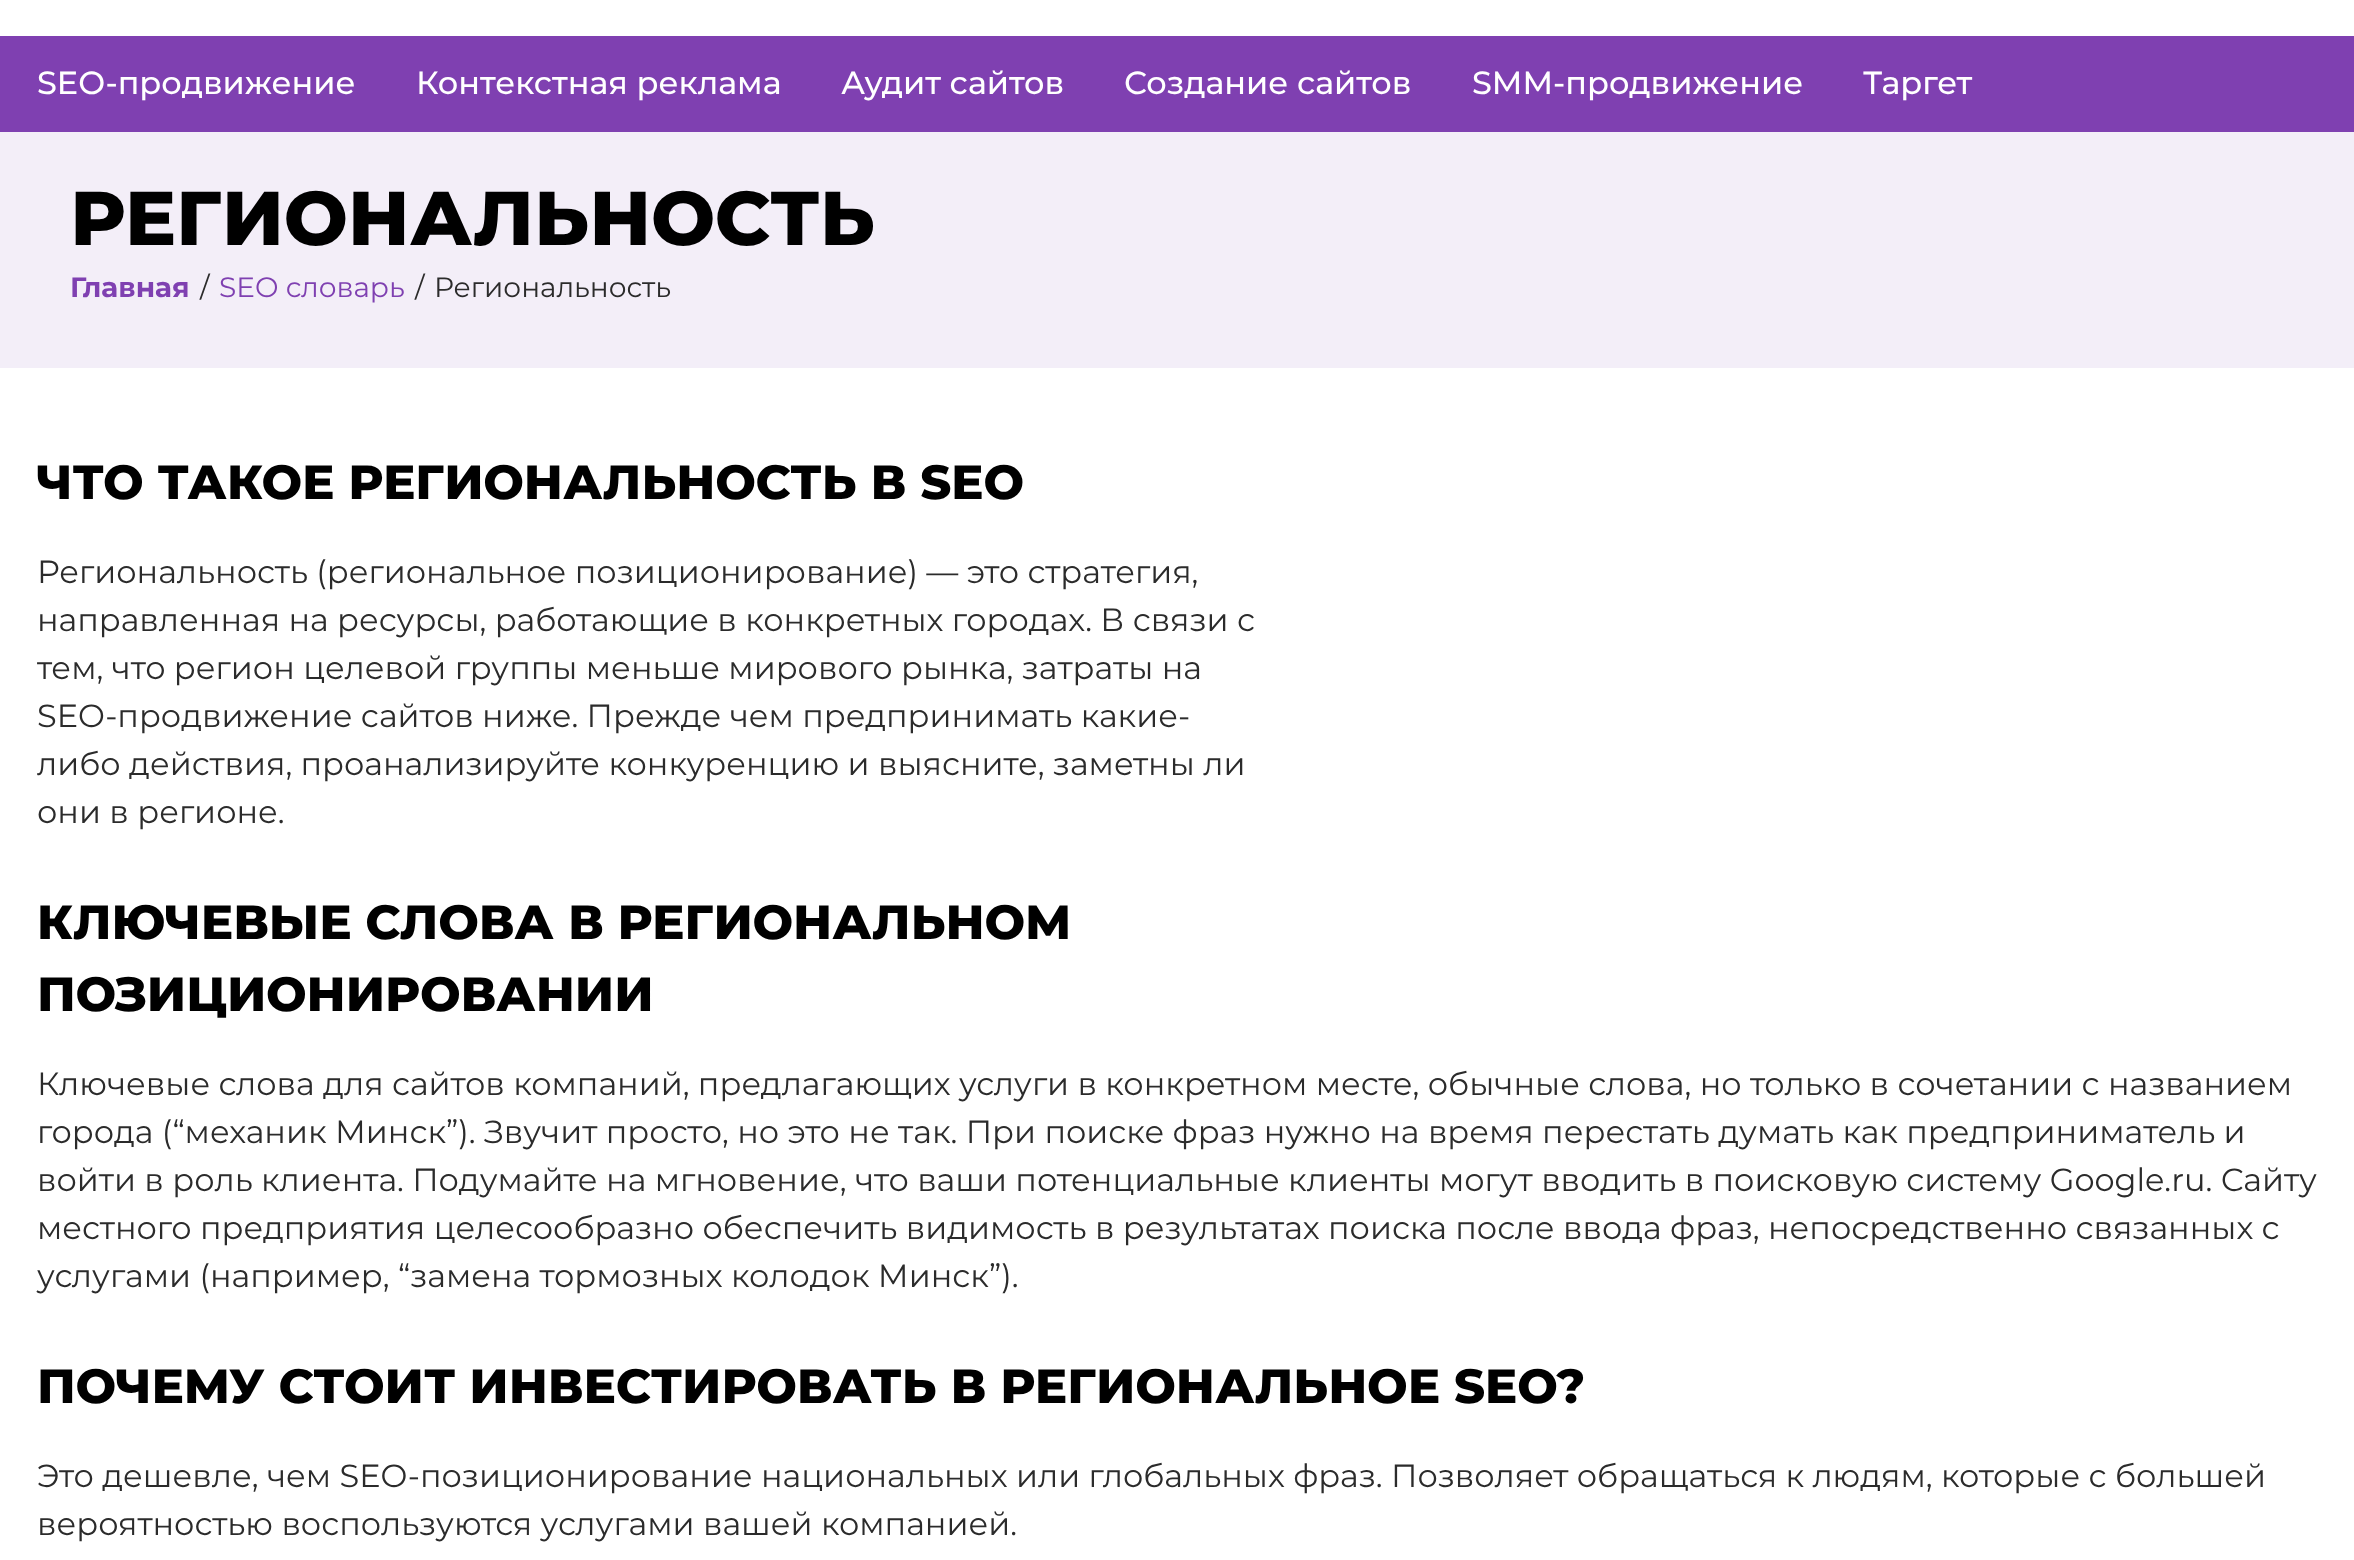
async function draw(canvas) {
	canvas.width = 2354;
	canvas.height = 1560;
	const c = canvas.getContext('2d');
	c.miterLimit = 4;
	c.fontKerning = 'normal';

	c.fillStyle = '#fff';
	c.fillRect(0, 0, 2354, 1560);
	c.fillStyle = '#7f40b1';
	c.fillRect(0, 36, 2354, 96);
	c.font = '500 32px Montserrat';
	c.fillStyle = '#fff';
	for (const [text, x, y] of [
		['SEO-продвижение', 37, 94],
		['Контекстная реклама', 416, 94],
		['Аудит сайтов', 841, 94],
		['Создание сайтов', 1124, 94],
		['SMM-продвижение', 1472, 94],
		['Таргет', 1863, 94],
	]) {
		c.fillText(text, x, y);
	}
	c.fillStyle = '#f3eef8';
	c.fillRect(0, 132, 2354, 236);
	c.font = '800 76px Montserrat';
	c.fillStyle = '#000';
	c.fillText('РЕГИОНАЛЬНОСТЬ', 70, 245);
	c.font = 'bold 28px Montserrat';
	c.fillStyle = '#7f40b1';
	c.fillText('Главная', 70, 297);
	c.font = '28px Montserrat';
	c.fillStyle = '#2b2b2b';
	c.fillText('/', 200, 297);
	c.fillStyle = '#7f40b1';
	c.fillText('SEO словарь', 219, 297);
	c.fillStyle = '#2b2b2b';
	c.fillText('/', 415, 297);
	c.fillText('Региональность', 434, 297);
	c.font = '800 48px Montserrat';
	c.fillStyle = '#000';
	c.fillText('ЧТО ТАКОЕ РЕГИОНАЛЬНОСТЬ В SEO', 37, 499);
	c.font = '32px Montserrat';
	c.fillStyle = '#2b2b2b';
	for (const [text, x, y] of [
		['Региональность (региональное позиционирование) — это стратегия,', 37, 583],
		['направленная на ресурсы, работающие в конкретных городах. В связи с', 37, 631],
		['тем, что регион целевой группы меньше мирового рынка, затраты на', 37, 679],
		['SEO-продвижение сайтов ниже. Прежде чем предпринимать какие-', 37, 727],
		['либо действия, проанализируйте конкуренцию и выясните, заметны ли', 37, 775],
		['они в регионе.', 37, 823],
	]) {
		c.fillText(text, x, y);
	}
	c.font = '800 48px Montserrat';
	c.fillStyle = '#000';
	c.fillText('КЛЮЧЕВЫЕ СЛОВА В РЕГИОНАЛЬНОМ', 37, 939);
	c.fillText('ПОЗИЦИОНИРОВАНИИ', 37, 1011);
	c.font = '32px Montserrat';
	c.fillStyle = '#2b2b2b';
	for (const [text, x, y] of [
		['Ключевые слова для сайтов компаний, предлагающих услуги в конкретном месте, обычные слова, но только в сочетании с названием', 37, 1095],
		['города (“механик Минск”). Звучит просто, но это не так. При поиске фраз нужно на время перестать думать как предприниматель и', 37, 1143],
		['войти в роль клиента. Подумайте на мгновение, что ваши потенциальные клиенты могут вводить в поисковую систему Google.ru. Сайту', 37, 1191],
		['местного предприятия целесообразно обеспечить видимость в результатах поиска после ввода фраз, непосредственно связанных с', 37, 1239],
		['услугами (например, “замена тормозных колодок Минск”).', 37, 1287],
	]) {
		c.fillText(text, x, y);
	}
	c.font = '800 48px Montserrat';
	c.fillStyle = '#000';
	c.fillText('ПОЧЕМУ СТОИТ ИНВЕСТИРОВАТЬ В РЕГИОНАЛЬНОЕ SEO?', 37, 1403);
	c.font = '32px Montserrat';
	c.fillStyle = '#2b2b2b';
	c.fillText('Это дешевле, чем SEO-позиционирование национальных или глобальных фраз. Позволяет обращаться к людям, которые с большей', 37, 1487);
	c.fillText('вероятностью воспользуются услугами вашей компанией.', 37, 1535);
}

draw(document.querySelector('canvas'));
